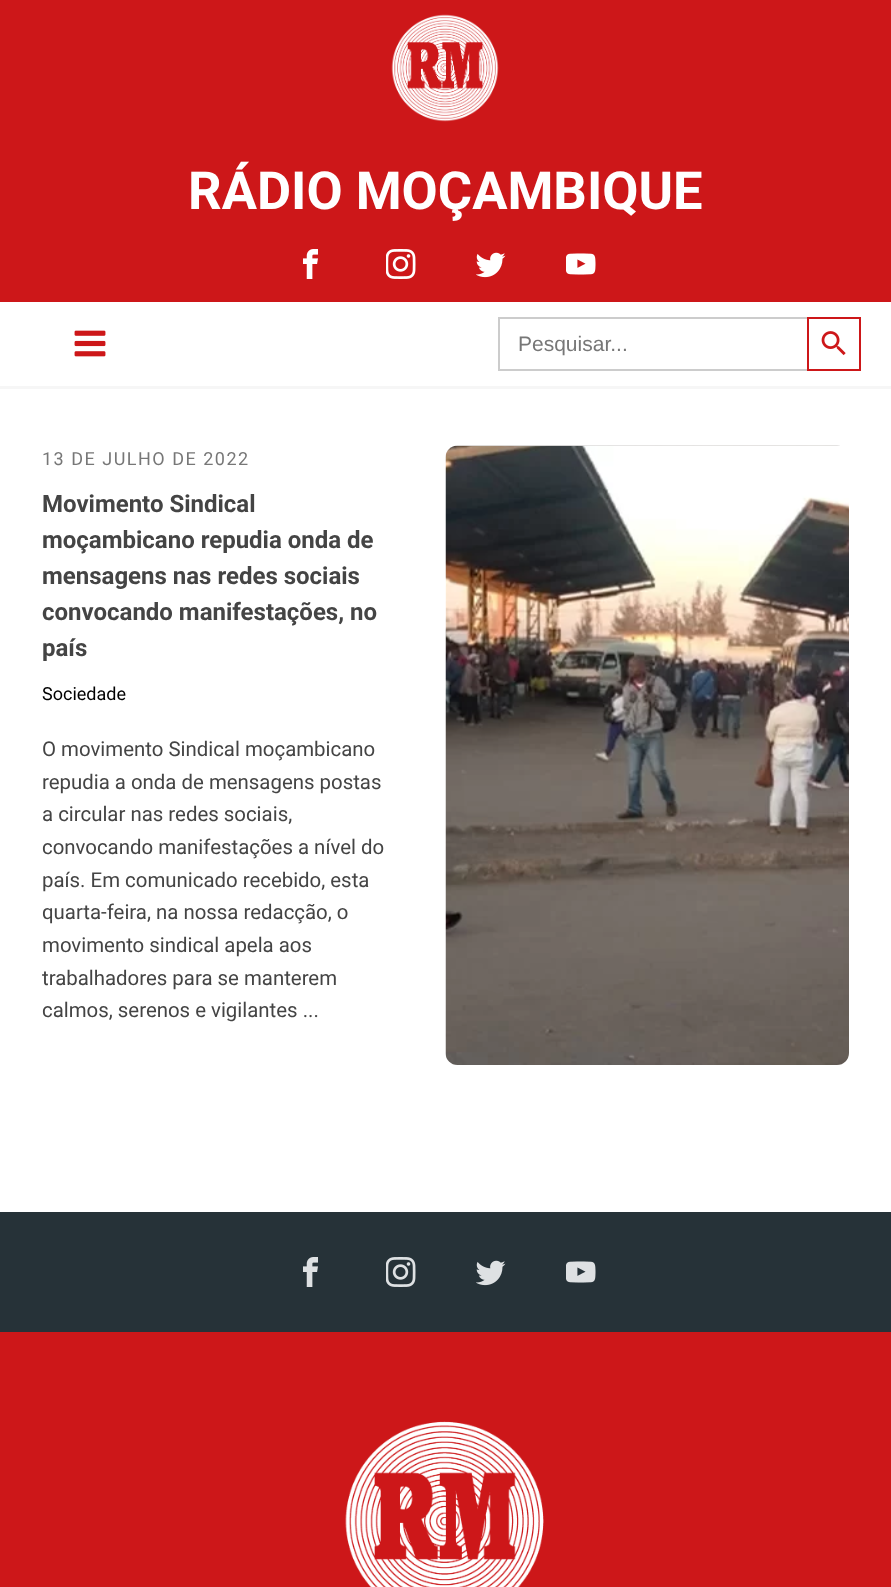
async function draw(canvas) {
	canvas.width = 891;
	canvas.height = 1587;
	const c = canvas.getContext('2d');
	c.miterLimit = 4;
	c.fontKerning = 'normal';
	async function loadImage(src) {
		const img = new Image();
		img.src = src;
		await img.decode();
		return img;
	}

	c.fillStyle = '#fff';
	c.fillRect(0, 0, 891, 1587);
	c.fillStyle = '#cd1719';
	c.fillRect(0, 0, 891, 302);
	c.drawImage(await loadImage('img1.png'), 391, 14, 108, 108);
	c.font = 'bold 52.5px Roboto';
	c.fillStyle = '#fff';
	c.fillText('RÁDIO MOÇAMBIQUE', 188, 209);
	c.drawImage(await loadImage('img2.png'), 303, 249, 15, 30);
	c.drawImage(await loadImage('img3.png'), 386, 249, 30, 30);
	c.drawImage(await loadImage('img4.png'), 476, 252, 30, 26);
	c.drawImage(await loadImage('img5.png'), 566, 253, 30, 22);
	c.fillStyle = '#f6f6f6';
	c.fillRect(0, 386, 891, 3);
	c.drawImage(await loadImage('img6.png'), 74, 330, 32, 27);
	for (const [x, y, w, h, color] of [
		[498, 317, 309, 2, '#ccc'],
		[498, 369, 309, 2, '#ccc'],
		[498, 317, 2, 54, '#ccc'],
	]) {
		c.fillStyle = color;
		c.fillRect(x, y, w, h);
	}
	c.font = '21px Liberation Sans';
	c.fillStyle = '#777';
	c.fillText('Pesquisar...', 518, 351);
	c.strokeStyle = '#cd1719';
	c.lineWidth = 2;
	c.strokeRect(808, 318, 52, 52);
	c.drawImage(await loadImage('img7.png'), 821, 331, 25, 25);
	c.letterSpacing = '1.5px';
	c.font = '18px Roboto';
	c.fillText('13 DE JULHO DE 2022', 42, 465);
	c.letterSpacing = '0px';
	c.font = 'bold 24px Roboto';
	c.fillStyle = '#444';
	for (const [text, x, y] of [
		['Movimento Sindical', 42, 512],
		['moçambicano repudia onda de', 42, 548],
		['mensagens nas redes sociais', 42, 584],
		['convocando manifestações, no', 42, 620],
		['país', 42, 656],
	]) {
		c.fillText(text, x, y);
	}
	c.font = '18px Roboto';
	c.fillStyle = '#000';
	c.fillText('Sociedade', 42, 700);
	c.font = '20.4px Roboto';
	c.fillStyle = '#444';
	for (const [text, x, y] of [
		['O movimento Sindical moçambicano', 42, 756],
		['repudia a onda de mensagens postas', 42, 789],
		['a circular nas redes sociais,', 42, 821],
		['convocando manifestações a nível do', 42, 854],
		['país. Em comunicado recebido, esta', 42, 887],
		['quarta-feira, na nossa redacção, o', 42, 919],
		['movimento sindical apela aos', 42, 952],
		['trabalhadores para se manterem', 42, 985],
		['calmos, serenos e vigilantes ...', 42, 1017],
	]) {
		c.fillText(text, x, y);
	}
	c.drawImage(await loadImage('img8.png'), 445, 445, 404, 620);
	c.fillStyle = '#263238';
	c.fillRect(0, 1212, 891, 120);
	c.drawImage(await loadImage('img9.png'), 303, 1257, 15, 30);
	c.drawImage(await loadImage('img10.png'), 386, 1257, 30, 30);
	c.drawImage(await loadImage('img11.png'), 476, 1260, 30, 26);
	c.drawImage(await loadImage('img12.png'), 566, 1261, 30, 22);
	c.fillStyle = '#cd1719';
	c.fillRect(0, 1332, 891, 255);
	c.drawImage(await loadImage('img13.png'), 345, 1421, 199, 166);
}

draw(document.querySelector('canvas'));
